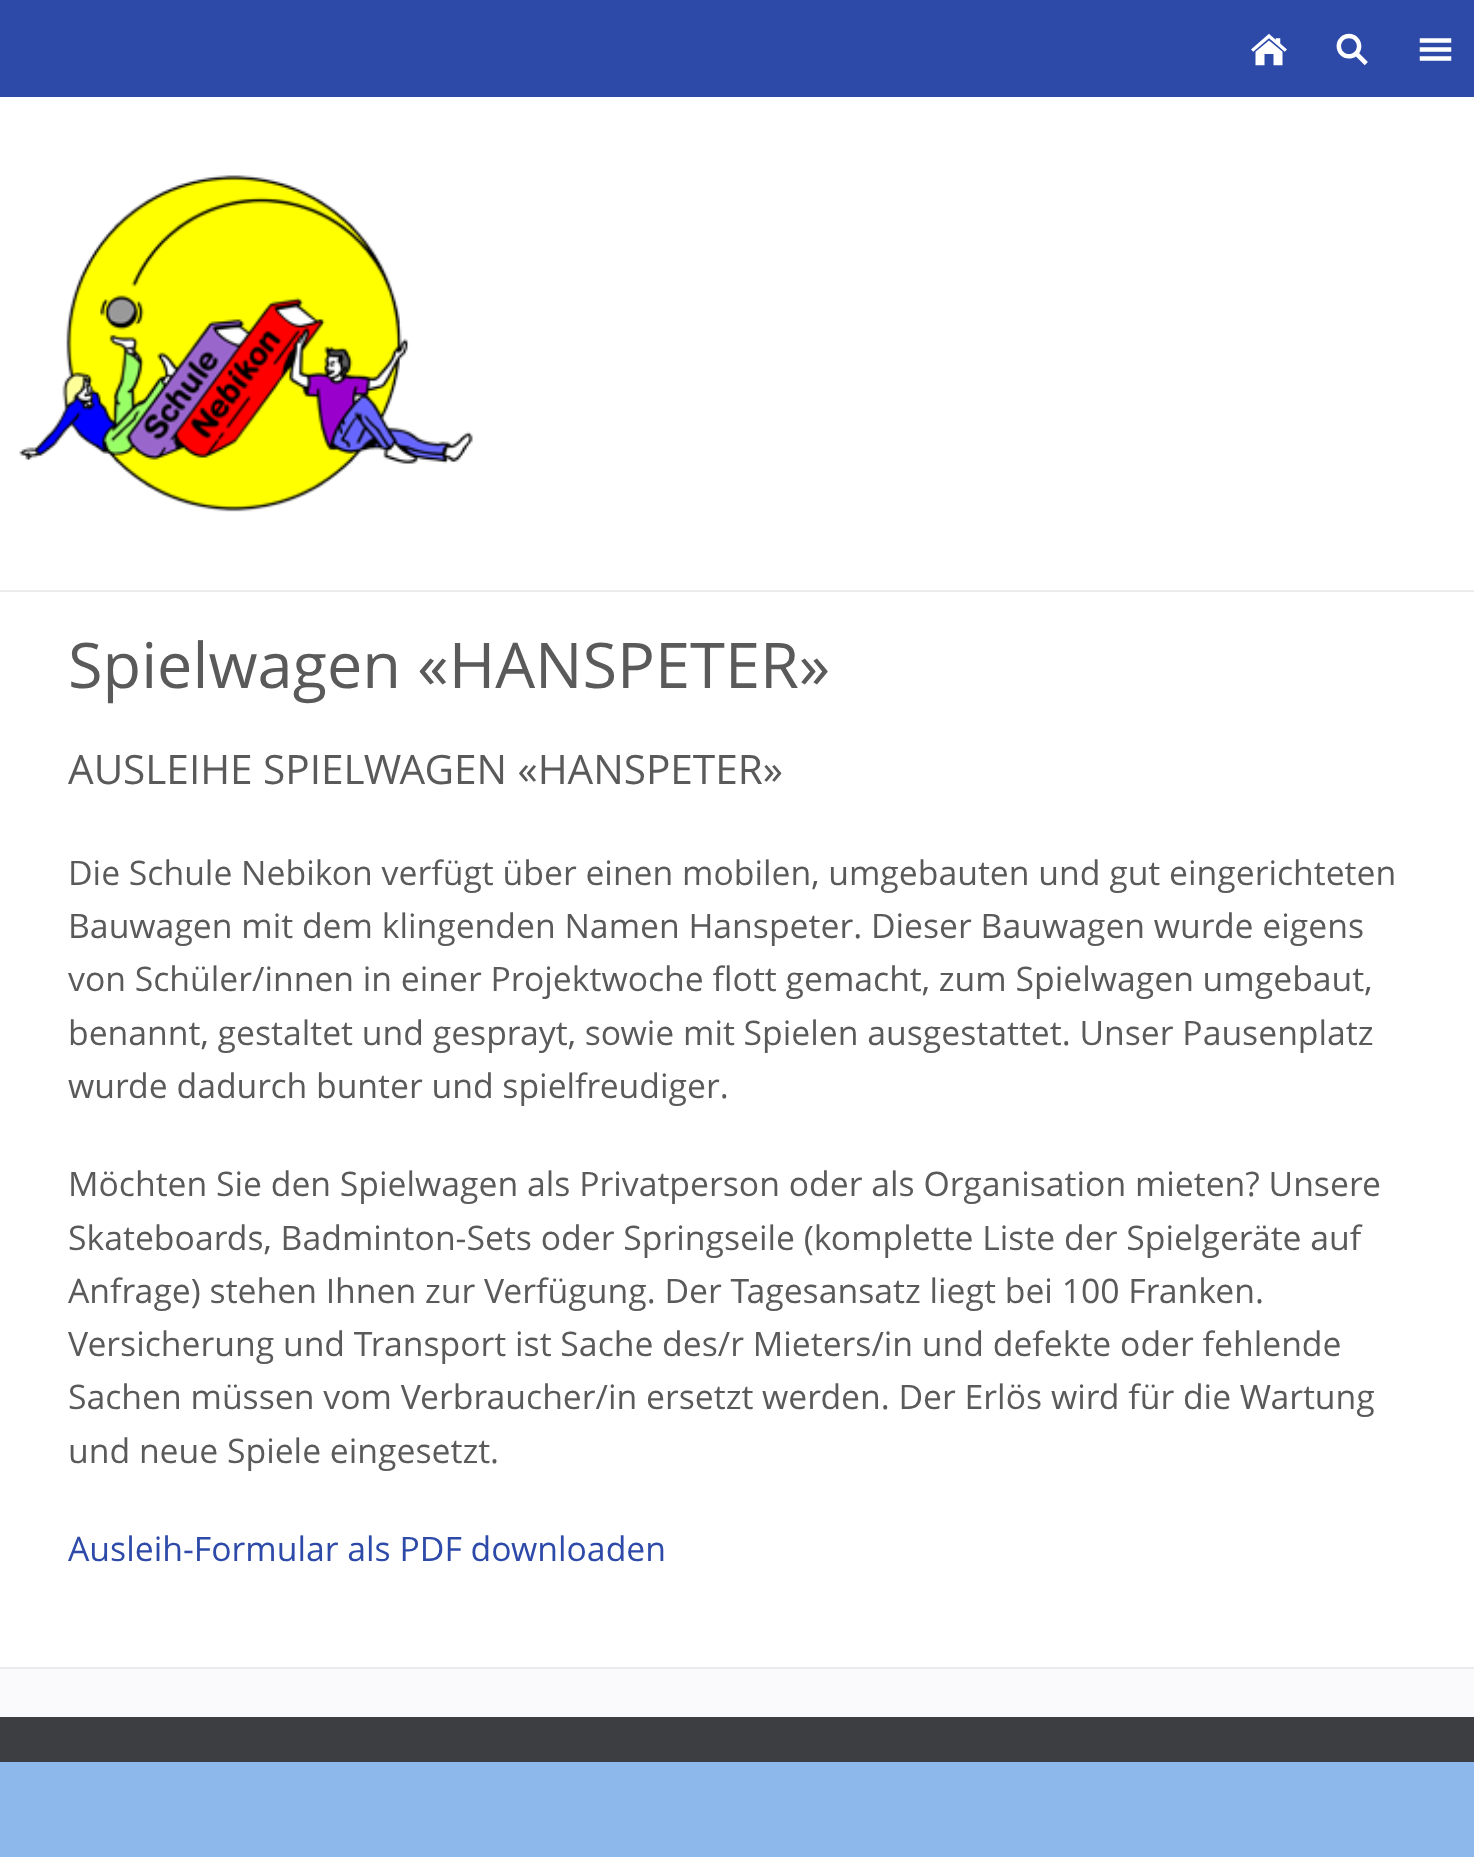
async function draw(canvas) {
	canvas.width = 1474;
	canvas.height = 1857;
	const c = canvas.getContext('2d');
	c.miterLimit = 4;
	c.fontKerning = 'normal';
	async function loadImage(src) {
		const img = new Image();
		img.src = src;
		await img.decode();
		return img;
	}

	c.fillStyle = '#8cb8ec';
	c.fillRect(0, 0, 1474, 1857);
	c.fillStyle = '#2e4aa9';
	c.fillRect(0, 0, 1474, 97);
	c.drawImage(await loadImage('img1.png'), 1251, 33, 36, 33);
	c.drawImage(await loadImage('img2.png'), 1336, 33, 32, 33);
	c.drawImage(await loadImage('img3.png'), 1419, 38, 33, 23);
	c.fillStyle = '#fff';
	c.fillRect(0, 97, 1474, 1570);
	c.fillStyle = '#ebebed';
	c.fillRect(0, 590, 1474, 2);
	c.drawImage(await loadImage('img4.png'), 19, 175, 454, 337);
	c.font = '63px Open Sans';
	c.fillStyle = '#5a5a5a';
	c.fillText('Spielwagen «HANSPETER»', 68, 688);
	c.font = '40.5px Open Sans';
	c.fillText('AUSLEIHE SPIELWAGEN «HANSPETER»', 68, 784);
	c.font = '33.75px Open Sans';
	for (const [text, x, y] of [
		['Die Schule Nebikon verfügt über einen mobilen, umgebauten und gut eingerichteten', 68, 885],
		['Bauwagen mit dem klingenden Namen Hanspeter. Dieser Bauwagen wurde eigens', 68, 938],
		['von Schüler/innen in einer Projektwoche flott gemacht, zum Spielwagen umgebaut,', 68, 991],
		['benannt, gestaltet und gesprayt, sowie mit Spielen ausgestattet. Unser Pausenplatz', 68, 1045],
		['wurde dadurch bunter und spielfreudiger.', 68, 1098],
		['Möchten Sie den Spielwagen als Privatperson oder als Organisation mieten? Unsere', 68, 1196],
		['Skateboards, Badminton-Sets oder Springseile (komplette Liste der Spielgeräte auf', 68, 1250],
		['Anfrage) stehen Ihnen zur Verfügung. Der Tagesansatz liegt bei 100 Franken.', 68, 1303],
		['Versicherung und Transport ist Sache des/r Mieters/in und defekte oder fehlende', 68, 1356],
		['Sachen müssen vom Verbraucher/in ersetzt werden. Der Erlös wird für die Wartung', 68, 1409],
		['und neue Spiele eingesetzt.', 68, 1463],
	]) {
		c.fillText(text, x, y);
	}
	c.fillStyle = '#2e4aa9';
	c.fillText('Ausleih-Formular als PDF downloaden', 68, 1561);
	for (const [x, y, w, h, color] of [
		[0, 1669, 1474, 48, '#fafafc'],
		[0, 1667, 1474, 2, '#ebebed'],
		[0, 1717, 1474, 45, '#3c3e42'],
	]) {
		c.fillStyle = color;
		c.fillRect(x, y, w, h);
	}
}

draw(document.querySelector('canvas'));
